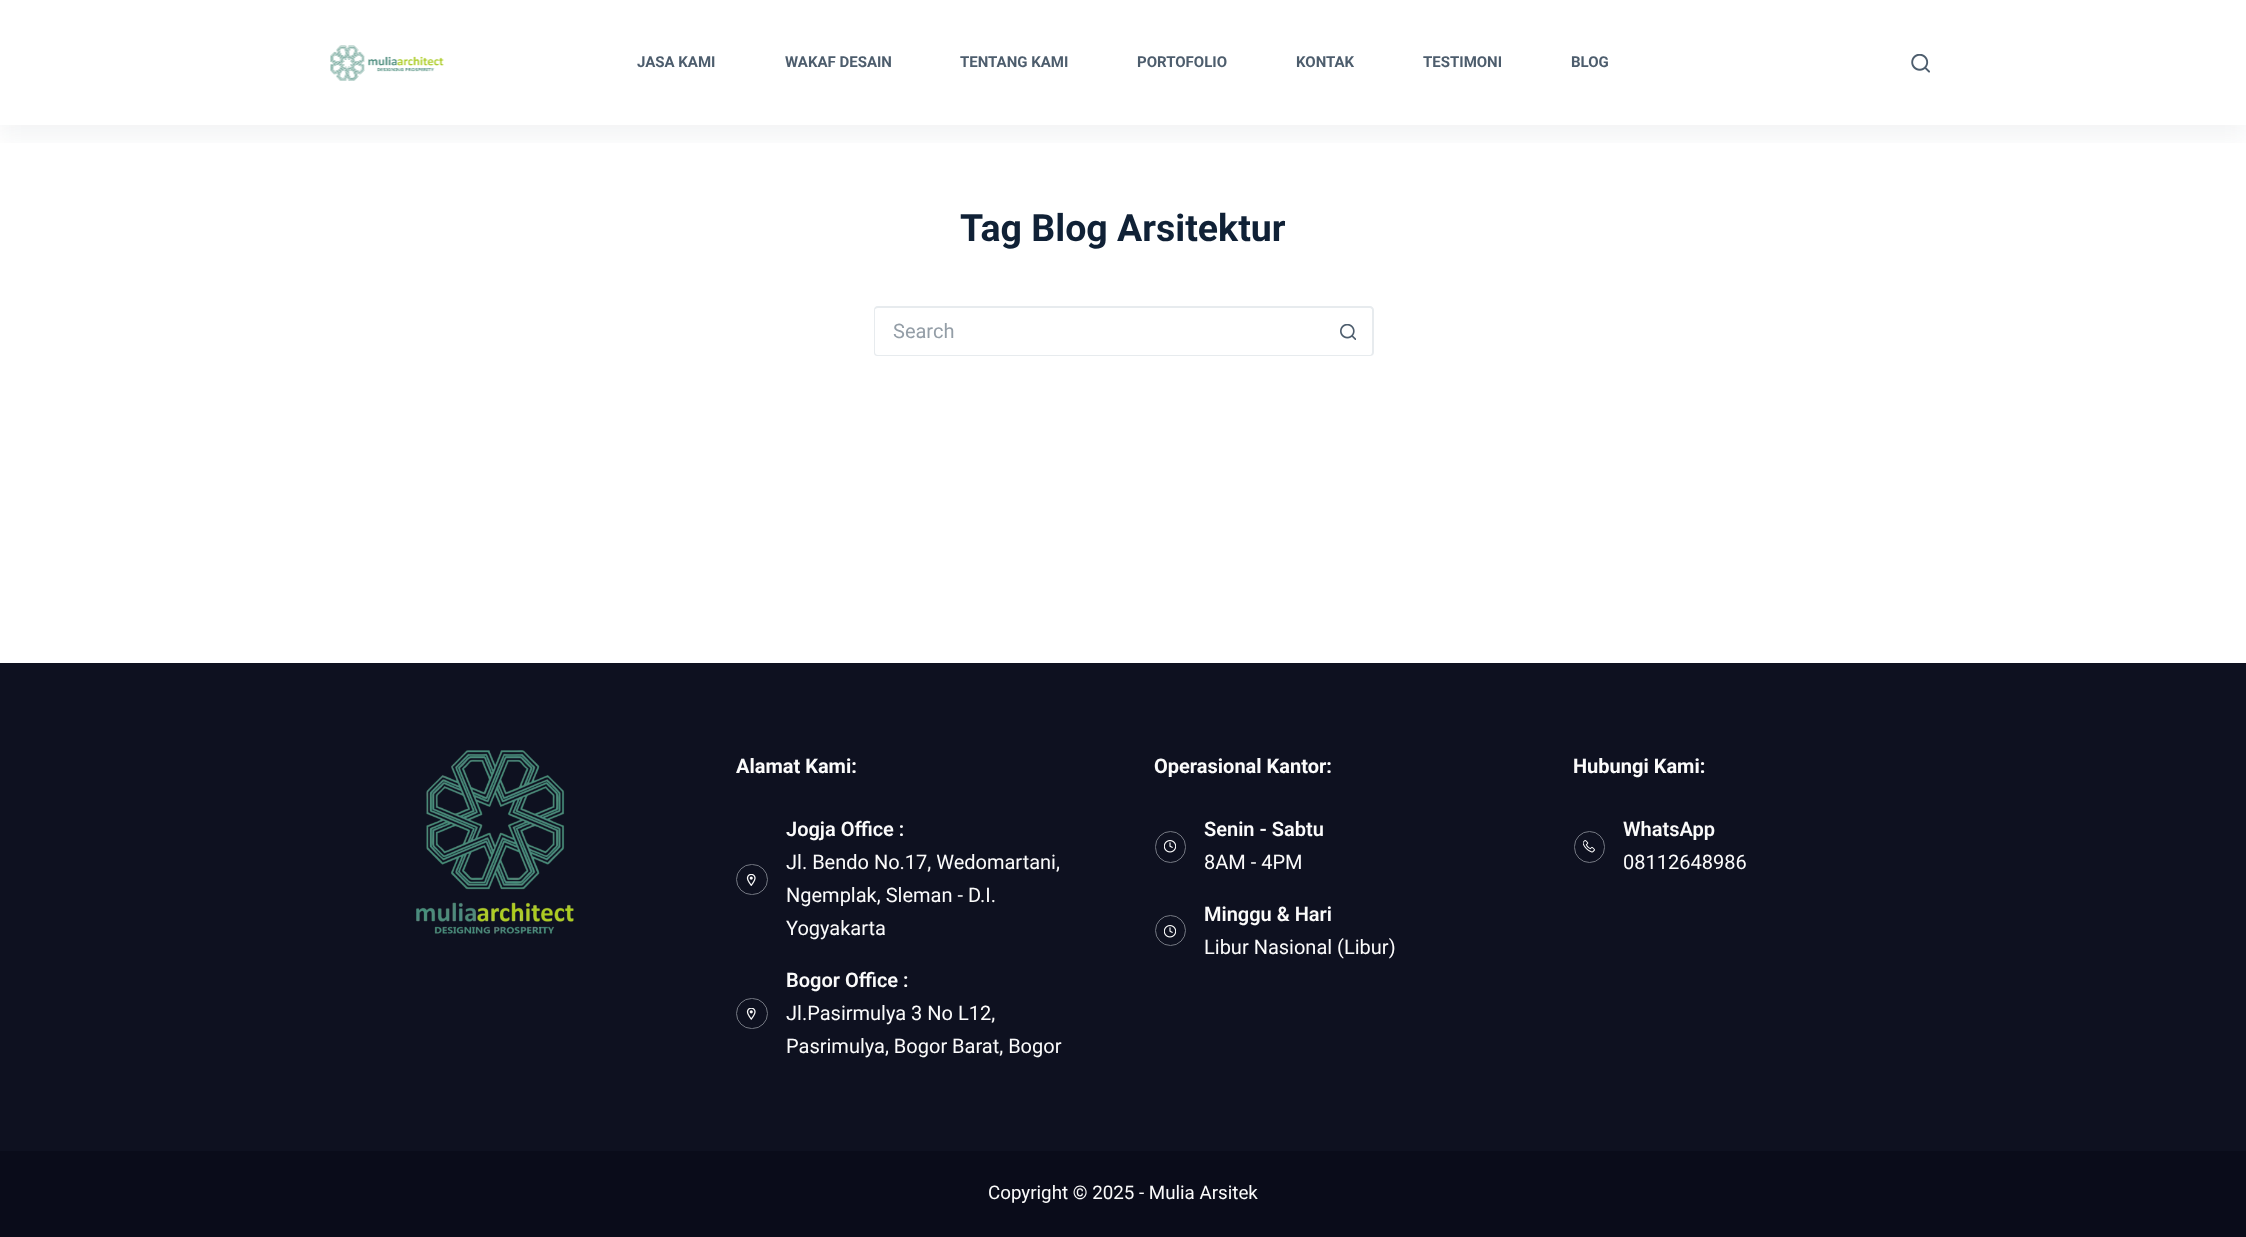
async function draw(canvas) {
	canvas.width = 2246;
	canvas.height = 1237;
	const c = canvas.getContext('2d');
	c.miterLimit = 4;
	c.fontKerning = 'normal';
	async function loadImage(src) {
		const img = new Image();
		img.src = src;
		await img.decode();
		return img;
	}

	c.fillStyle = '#fff';
	c.fillRect(0, 0, 2246, 1237);
	c.save();
	c.beginPath();
	c.rect(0, 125, 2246, 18);
	c.clip();
	c.fillStyle = '#2b3d500f';
	c.filter = 'blur(12.5px)';
	c.beginPath();
	c.rect(0, 13, 2246, 125);
	c.fill();
	c.filter = 'none';
	c.restore();
	c.drawImage(await loadImage('img1.png'), 330, 45, 114, 36);
	c.font = 'bold 15px Roboto';
	c.fillStyle = '#4d5d6d';
	for (const [text, x, y] of [
		['JASA KAMI', 637, 67],
		['WAKAF DESAIN', 785, 67],
		['TENTANG KAMI', 960, 67],
		['PORTOFOLIO', 1137, 67],
		['KONTAK', 1296, 67],
		['TESTIMONI', 1423, 67],
		['BLOG', 1571, 67],
	]) {
		c.fillText(text, x, y);
	}
	c.drawImage(await loadImage('img2.png'), 1911, 54, 19, 19);
	c.font = 'bold 37.5px Roboto';
	c.fillStyle = '#102136';
	c.fillText('Tag Blog Arsitektur', 960, 241);
	c.fillStyle = '#e7ebee';
	c.beginPath();
	c.moveTo(878, 306);
	c.lineTo(1324, 306);
	c.lineTo(1324, 356);
	c.lineTo(878, 356);
	c.bezierCurveTo(875, 356, 874, 355, 874, 352);
	c.lineTo(874, 310);
	c.bezierCurveTo(874, 308, 875, 306, 878, 306);
	c.closePath();
	c.moveTo(878, 308);
	c.lineTo(1324, 308);
	c.lineTo(1324, 355);
	c.lineTo(878, 355);
	c.bezierCurveTo(876, 355, 875, 354, 875, 352);
	c.lineTo(875, 310);
	c.bezierCurveTo(875, 309, 876, 308, 878, 308);
	c.closePath();
	c.fill('evenodd');
	c.font = '20px Roboto';
	c.fillStyle = '#949ea7';
	c.fillText('Search', 893, 338);
	c.fillStyle = '#e7ebee';
	c.beginPath();
	c.moveTo(1324, 306);
	c.lineTo(1370, 306);
	c.bezierCurveTo(1372, 306, 1374, 308, 1374, 310);
	c.lineTo(1374, 352);
	c.bezierCurveTo(1374, 355, 1372, 356, 1370, 356);
	c.lineTo(1324, 356);
	c.closePath();
	c.moveTo(1324, 308);
	c.lineTo(1370, 308);
	c.bezierCurveTo(1371, 308, 1372, 309, 1372, 310);
	c.lineTo(1372, 352);
	c.bezierCurveTo(1372, 354, 1371, 355, 1370, 355);
	c.lineTo(1324, 355);
	c.closePath();
	c.fill('evenodd');
	c.drawImage(await loadImage('img3.png'), 1340, 324, 16, 16);
	c.fillStyle = '#0e1120';
	c.fillRect(0, 663, 2246, 488);
	c.drawImage(await loadImage('img4.png'), 416, 750, 158, 184);
	c.font = 'bold 20px Roboto';
	c.fillStyle = '#fbfbfb';
	c.fillText('Alamat Kami:', 736, 773);
	c.beginPath();
	c.roundRect(736.5, 864.5, 31, 30, 15);
	c.strokeStyle = '#747882';
	c.stroke();
	c.drawImage(await loadImage('img5.png'), 746, 874, 10, 12);
	c.font = '600 20px Roboto';
	c.fillText('Jogja Office :', 786, 836);
	c.font = '20px Roboto';
	for (const [text, x, y] of [
		['Jl. Bendo No.17, Wedomartani,', 786, 869],
		['Ngemplak, Sleman - D.I.', 786, 902],
		['Yogyakarta', 786, 935],
	]) {
		c.fillText(text, x, y);
	}
	c.beginPath();
	c.roundRect(736.5, 998.5, 31, 30, 15);
	c.stroke();
	c.drawImage(await loadImage('img6.png'), 746, 1008, 10, 12);
	c.font = '600 20px Roboto';
	c.fillText('Bogor Office :', 786, 987);
	c.font = '20px Roboto';
	c.fillText('Jl.Pasirmulya 3 No L12,', 786, 1020);
	c.fillText('Pasrimulya, Bogor Barat, Bogor', 786, 1053);
	c.font = 'bold 20px Roboto';
	c.fillText('Operasional Kantor:', 1154, 773);
	c.beginPath();
	c.roundRect(1155.5, 831.5, 30, 31, 15);
	c.stroke();
	c.drawImage(await loadImage('img7.png'), 1164, 840, 12, 13);
	c.font = '600 20px Roboto';
	c.fillText('Senin - Sabtu', 1204, 836);
	c.font = '20px Roboto';
	c.fillText('8AM - 4PM', 1204, 869);
	c.beginPath();
	c.arc(1170.5, 930.5, 15, 0, 2 * Math.PI);
	c.stroke();
	c.drawImage(await loadImage('img7.png'), 1164, 925, 12, 13);
	c.font = '600 20px Roboto';
	c.fillText('Minggu & Hari', 1204, 921);
	c.font = '20px Roboto';
	c.fillText('Libur Nasional (Libur)', 1204, 954);
	c.font = 'bold 20px Roboto';
	c.fillText('Hubungi Kami:', 1573, 773);
	c.beginPath();
	c.roundRect(1574.5, 831.5, 30, 31, 15);
	c.stroke();
	c.drawImage(await loadImage('img8.png'), 1583, 840, 12, 13);
	c.font = '600 20px Roboto';
	c.fillText('WhatsApp', 1623, 836);
	c.font = '20px Roboto';
	c.fillText('08112648986', 1623, 869);
	c.fillStyle = '#0a0c1a';
	c.fillRect(0, 1151, 2246, 86);
	c.font = '18.75px Roboto';
	c.fillStyle = '#fbfbfb';
	c.fillText('Copyright © 2025 - Mulia Arsitek', 988, 1199);
}

draw(document.querySelector('canvas'));
